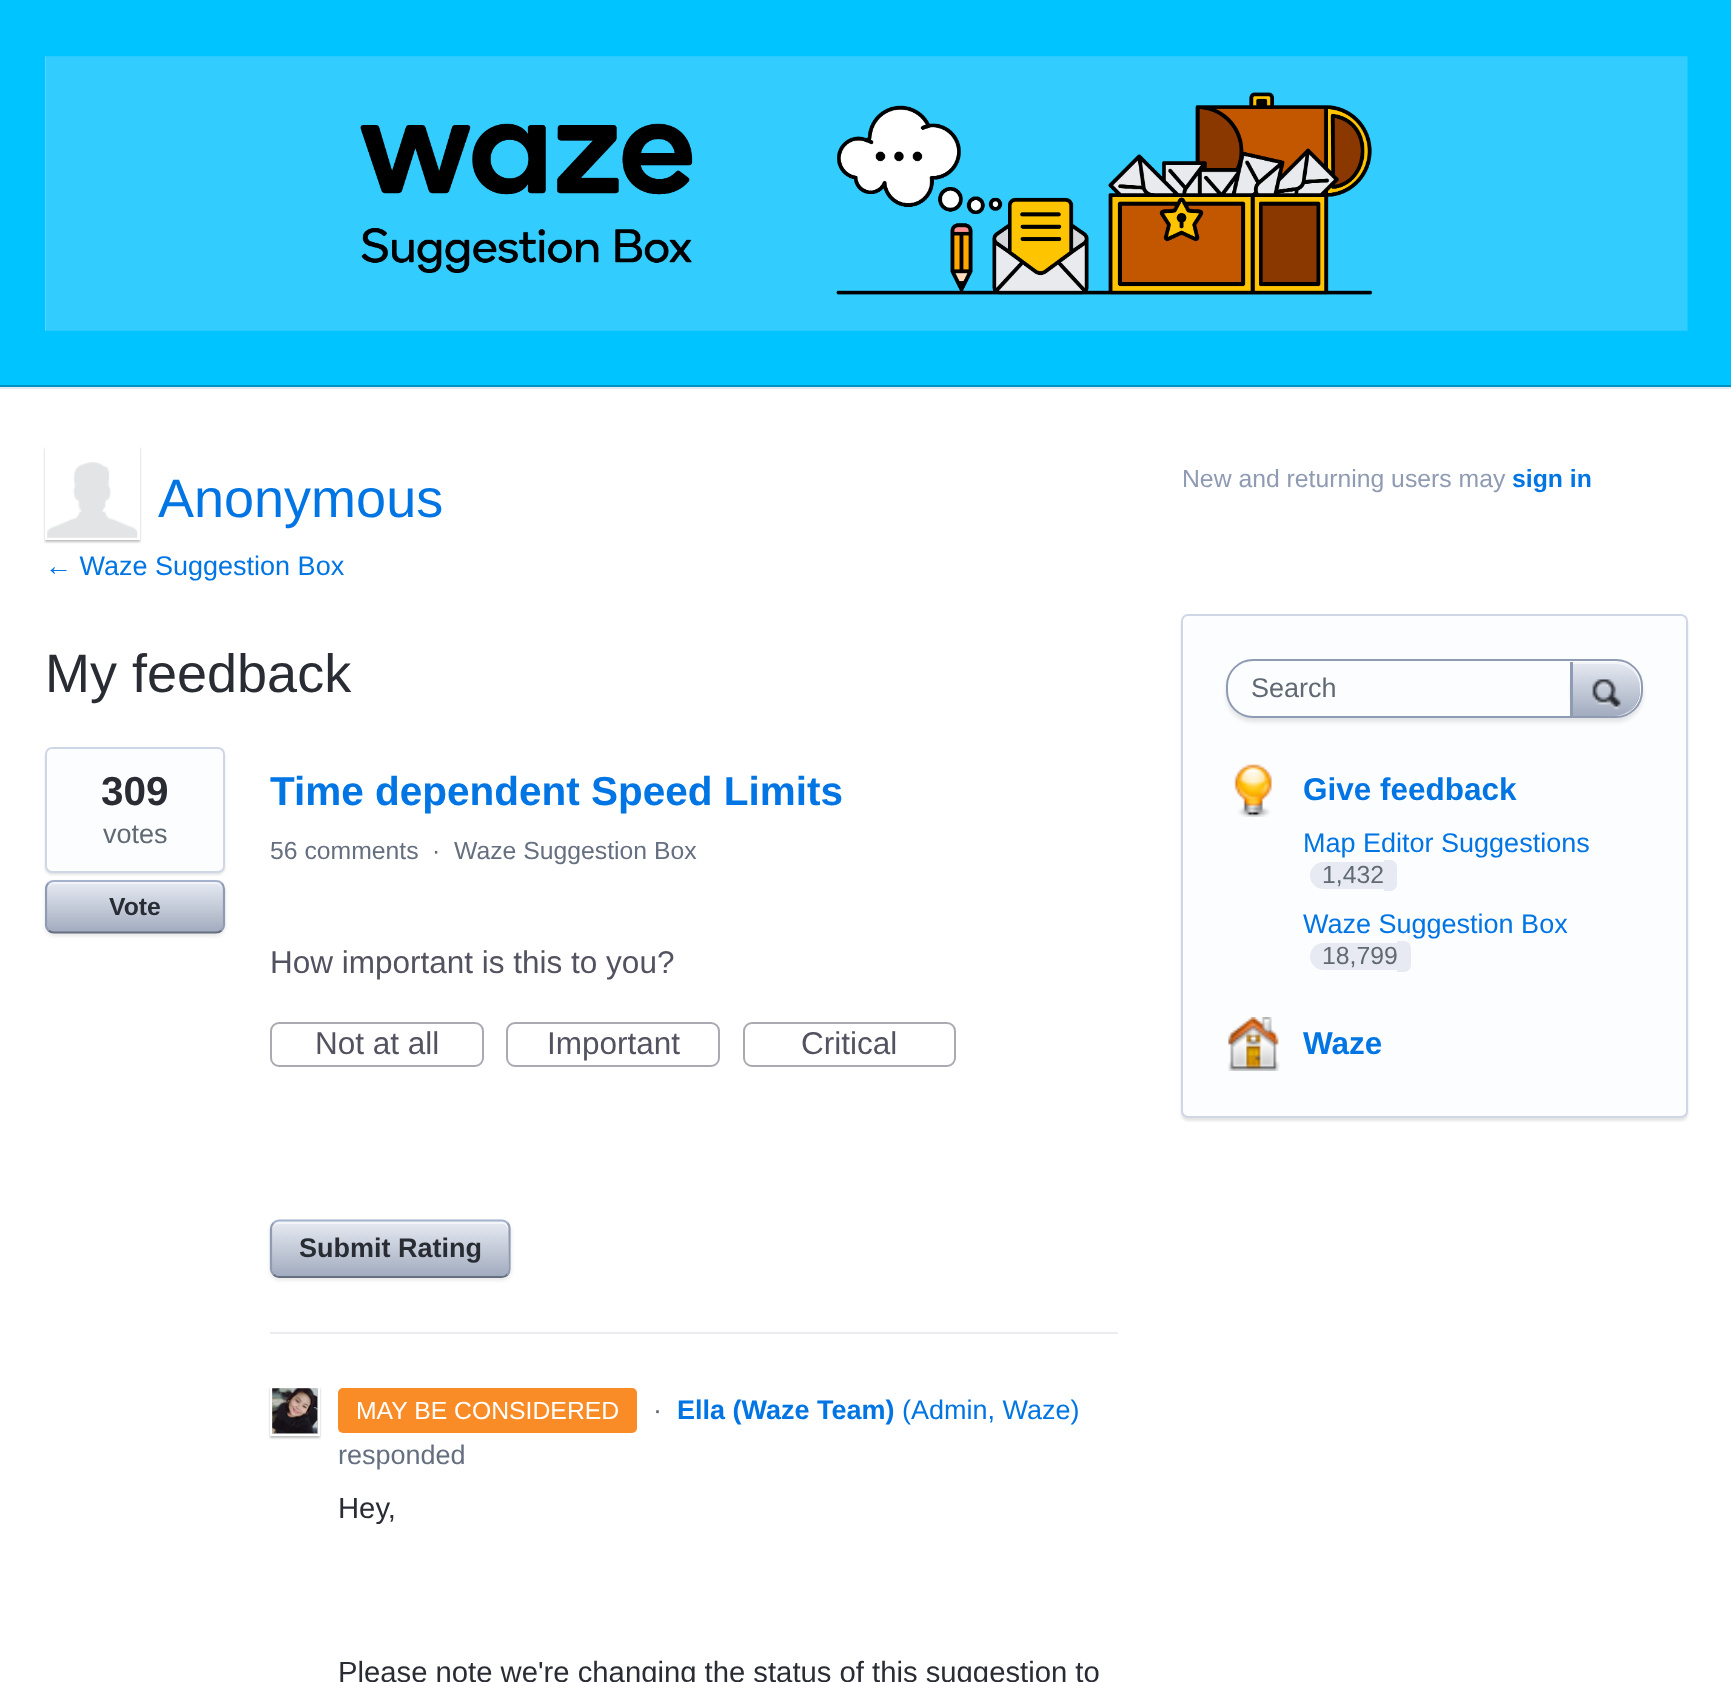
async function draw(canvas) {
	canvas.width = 1731;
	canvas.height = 1682;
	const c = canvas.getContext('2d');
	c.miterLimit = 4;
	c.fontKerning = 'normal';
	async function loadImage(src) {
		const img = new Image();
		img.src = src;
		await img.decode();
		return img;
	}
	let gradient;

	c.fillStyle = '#fff';
	c.fillRect(0, 0, 1731, 1682);
	c.fillStyle = '#00c4ff';
	c.fillRect(0, 0, 1731, 385);
	c.fillStyle = '#0093bf';
	c.fillRect(0, 385, 1731, 2);
	c.drawImage(await loadImage('img1.png'), 45, 56, 1643, 275);
	c.fillStyle = '#e3e8f2';
	c.fillRect(0, 387, 1731, 2);
	c.save();
	c.beginPath();
	c.moveTo(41, 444);
	c.lineTo(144, 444);
	c.lineTo(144, 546);
	c.lineTo(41, 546);
	c.closePath();
	c.moveTo(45, 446);
	c.lineTo(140, 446);
	c.lineTo(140, 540);
	c.lineTo(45, 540);
	c.closePath();
	c.clip('evenodd');
	c.fillStyle = '#00000040';
	c.filter = 'blur(1px)';
	c.beginPath();
	c.rect(45, 448, 95, 94);
	c.fill();
	c.filter = 'none';
	c.restore();
	c.strokeStyle = '#fff';
	c.lineWidth = 2;
	c.strokeRect(46, 447, 93, 92);
	c.drawImage(await loadImage('img2.png'), 47, 462, 91, 76);
	c.font = '54px Liberation Sans';
	c.fillStyle = '#0075e3';
	c.fillText('Anonymous', 158, 517);
	c.font = '27px Liberation Sans';
	c.fillText('← Waze Suggestion Box', 45, 575);
	c.font = '54px Liberation Sans';
	c.fillStyle = '#292c33';
	c.fillText('My feedback', 45, 692);
	c.fillStyle = '#0000001a';
	c.filter = 'blur(1px)';
	c.beginPath();
	c.roundRect(45, 749, 180, 126, 7);
	c.fill();
	c.filter = 'none';
	c.fillStyle = '#fcfdff';
	c.beginPath();
	c.roundRect(46, 748, 178, 124, 6);
	c.fill();
	c.strokeStyle = '#cfd7e6';
	c.stroke();
	c.font = 'bold 40.5px Liberation Sans';
	c.fillStyle = '#292c33';
	c.fillText('309', 101, 805);
	c.font = '27px Liberation Sans';
	c.fillStyle = '#616973';
	c.fillText('votes', 103, 843);
	c.fillStyle = '#0000001a';
	c.filter = 'blur(2px)';
	c.beginPath();
	c.roundRect(45, 882, 180, 54, 9);
	c.fill();
	c.filter = 'none';
	gradient = c.createLinearGradient(47, 882, 47, 932);
	gradient.addColorStop(0, '#e6eaf2');
	gradient.addColorStop(1, '#a2acbf');
	c.fillStyle = gradient;
	c.beginPath();
	c.roundRect(47, 882, 176, 50, 7);
	c.fill();
	c.fillStyle = '#ffffff80';
	c.beginPath();
	c.moveTo(54, 884);
	c.lineTo(216, 884);
	c.bezierCurveTo(220, 884, 223, 887, 223, 891);
	c.lineTo(223, 889);
	c.bezierCurveTo(223, 885, 220, 882, 216, 882);
	c.lineTo(54, 882);
	c.bezierCurveTo(50, 882, 47, 885, 47, 889);
	c.lineTo(47, 891);
	c.bezierCurveTo(47, 887, 50, 884, 54, 884);
	c.closePath();
	c.fill();
	c.beginPath();
	c.moveTo(48.5, 883);
	c.bezierCurveTo(50, 881.5, 52, 881, 54, 881);
	c.lineTo(216, 881);
	c.bezierCurveTo(218, 881, 220, 881.5, 221.5, 883);
	c.strokeStyle = '#a3b1cc';
	c.lineWidth = 2.2;
	c.stroke();
	c.beginPath();
	c.moveTo(221.5, 883);
	c.bezierCurveTo(223, 884.5, 224, 886.5, 224, 889);
	c.lineTo(224, 925);
	c.bezierCurveTo(224, 927, 223, 929, 221.5, 930.5);
	c.strokeStyle = '#8f9bb3';
	c.stroke();
	c.beginPath();
	c.moveTo(221.5, 930.5);
	c.bezierCurveTo(220, 932, 218, 932.5, 216, 932.5);
	c.lineTo(54, 932.5);
	c.bezierCurveTo(52, 932.5, 50, 932, 48.5, 930.5);
	c.strokeStyle = '#666f80';
	c.stroke();
	c.save();
	c.beginPath();
	c.rect(45, 446, 1643, 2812);
	c.clip();
	c.beginPath();
	c.moveTo(48.5, 930.5);
	c.bezierCurveTo(47, 929, 46, 927, 46, 925);
	c.lineTo(46, 889);
	c.bezierCurveTo(46, 886.5, 47, 884.5, 48.5, 883);
	c.strokeStyle = '#8f9bb3';
	c.stroke();
	c.restore();
	c.font = 'bold 24.75px Liberation Sans';
	c.fillStyle = '#292c33';
	c.fillText('Vote', 109, 915);
	c.font = 'bold 40.5px Liberation Sans';
	c.fillStyle = '#0075e3';
	c.fillText('Time dependent Speed Limits', 270, 805);
	c.font = '24.75px Liberation Sans';
	c.fillStyle = '#666f80';
	c.fillText('56 comments', 270, 859);
	c.fillStyle = '#616973';
	c.fillText('·', 432, 859);
	c.fillStyle = '#666f80';
	c.fillText('Waze Suggestion Box', 454, 859);
	c.fillStyle = '#ebebf1';
	c.fillRect(270, 1332, 848, 2);
	c.font = '31.5px Liberation Sans';
	c.fillStyle = '#525260';
	c.fillText('How important is this to you?', 270, 973);
	c.beginPath();
	c.roundRect(271, 1023, 212, 43, 8);
	c.strokeStyle = '#aaaab2';
	c.lineWidth = 2;
	c.stroke();
	c.fillText('Not at all', 315, 1054);
	c.beginPath();
	c.roundRect(507, 1023, 212, 43, 8);
	c.stroke();
	c.fillText('Important', 547, 1054);
	c.beginPath();
	c.roundRect(744, 1023, 211, 43, 8);
	c.stroke();
	c.fillText('Critical', 801, 1054);
	c.fillStyle = '#0000001a';
	c.filter = 'blur(2px)';
	c.beginPath();
	c.roundRect(270, 1222, 241, 58, 9);
	c.fill();
	c.filter = 'none';
	gradient = c.createLinearGradient(272, 1222, 272, 1276);
	gradient.addColorStop(0, '#e6eaf2');
	gradient.addColorStop(1, '#a2acbf');
	c.fillStyle = gradient;
	c.beginPath();
	c.roundRect(272, 1222, 237, 54, 7);
	c.fill();
	c.fillStyle = '#ffffff80';
	c.beginPath();
	c.moveTo(279, 1224);
	c.lineTo(502, 1224);
	c.bezierCurveTo(511, 1224, 508, 1240, 508, 1244);
	c.lineTo(508, 1273);
	c.bezierCurveTo(509, 1272, 509, 1270, 509, 1269);
	c.lineTo(509, 1229);
	c.bezierCurveTo(509, 1225, 506, 1222, 502, 1222);
	c.lineTo(279, 1222);
	c.bezierCurveTo(275, 1222, 272, 1225, 272, 1229);
	c.lineTo(272, 1231);
	c.bezierCurveTo(272, 1227, 275, 1224, 279, 1224);
	c.closePath();
	c.fill();
	c.beginPath();
	c.moveTo(273.5, 1223);
	c.bezierCurveTo(275, 1221.5, 277, 1220.5, 279, 1220.5);
	c.lineTo(502, 1220.5);
	c.bezierCurveTo(504, 1220.5, 506, 1221.5, 507.5, 1223);
	c.strokeStyle = '#a3b1cc';
	c.lineWidth = 2.2;
	c.stroke();
	c.beginPath();
	c.moveTo(507.5, 1223);
	c.bezierCurveTo(509, 1224.5, 509.5, 1226.5, 509.5, 1228.5);
	c.lineTo(509.5, 1269);
	c.bezierCurveTo(509.5, 1271, 509, 1273, 507.5, 1274.5);
	c.strokeStyle = '#8f9bb3';
	c.stroke();
	c.beginPath();
	c.moveTo(507.5, 1274.5);
	c.bezierCurveTo(506, 1276, 504, 1277, 502, 1277);
	c.lineTo(279, 1277);
	c.bezierCurveTo(277, 1277, 275, 1276, 273.5, 1274.5);
	c.strokeStyle = '#666f80';
	c.stroke();
	c.beginPath();
	c.moveTo(273.5, 1274.5);
	c.bezierCurveTo(272, 1273, 271, 1271, 271, 1269);
	c.lineTo(271, 1228.5);
	c.bezierCurveTo(271, 1226.5, 272, 1224.5, 273.5, 1223);
	c.strokeStyle = '#8f9bb3';
	c.stroke();
	c.font = 'bold 27px Liberation Sans';
	c.fillStyle = '#292c33';
	c.fillText('Submit Rating', 299, 1257);
	c.fillStyle = '#fa8c28';
	c.beginPath();
	c.roundRect(338, 1388, 299, 45, 5);
	c.fill();
	c.font = '24.75px Liberation Sans';
	c.fillStyle = '#fff';
	c.fillText('MAY BE CONSIDERED', 356, 1419);
	c.font = '27px Liberation Sans';
	c.fillStyle = '#616973';
	c.fillText('·', 653, 1419);
	c.fillStyle = '#00000040';
	c.filter = 'blur(1px)';
	c.beginPath();
	c.rect(270, 1388, 50, 50);
	c.fill();
	c.filter = 'none';
	c.strokeStyle = '#fff';
	c.lineWidth = 2;
	c.strokeRect(271, 1387, 48, 48);
	c.drawImage(await loadImage('img3.png'), 272, 1388, 46, 46);
	c.font = 'bold 27px Liberation Sans';
	c.fillStyle = '#0075e3';
	c.fillText('Ella (Waze Team)', 677, 1419);
	c.font = '27px Liberation Sans';
	c.fillText('(Admin, Waze)', 902, 1419);
	c.fillStyle = '#666f80';
	c.fillText('responded', 338, 1464);
	c.font = '29.25px Liberation Sans';
	c.fillStyle = '#292c33';
	c.fillText('Hey,', 338, 1518);
	c.fillText('Please note we\'re changing the status of this suggestion to', 338, 1682);
	c.font = '24.75px Liberation Sans';
	c.fillStyle = '#8f9bb3';
	c.fillText('New and returning users may', 1182, 487);
	c.font = 'bold 24.75px Liberation Sans';
	c.fillStyle = '#0075e3';
	c.fillText('sign in', 1512, 487);
	c.fillStyle = '#0000001a';
	c.filter = 'blur(1px)';
	c.beginPath();
	c.roundRect(1181, 617, 507, 504, 7);
	c.fill();
	c.filter = 'none';
	c.fillStyle = '#fcfdff';
	c.beginPath();
	c.roundRect(1182, 615, 505, 502, 6);
	c.fill();
	c.strokeStyle = '#cfd7e6';
	c.stroke();
	c.fillStyle = '#0000001a';
	c.filter = 'blur(2px)';
	c.beginPath();
	c.roundRect(1226, 664, 417, 58, 27);
	c.fill();
	c.filter = 'none';
	c.fillStyle = '#fcfdff';
	c.beginPath();
	c.roundRect(1227, 660, 415, 57, 26);
	c.fill();
	c.strokeStyle = '#8f9bb3';
	c.stroke();
	c.font = '27px Liberation Sans';
	c.fillStyle = '#616973';
	c.fillText('Search', 1251, 697);
	c.save();
	c.beginPath();
	c.roundRect(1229, 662, 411, 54, 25);
	c.clip();
	c.fillStyle = '#0000001a';
	c.filter = 'blur(2px)';
	c.beginPath();
	c.roundRect(1571, 662, 72, 56, 27);
	c.fill();
	c.filter = 'none';
	c.restore();
	gradient = c.createLinearGradient(1573, 662, 1573, 716);
	gradient.addColorStop(0, '#e6eaf2');
	gradient.addColorStop(1, '#a2acbf');
	c.fillStyle = gradient;
	c.beginPath();
	c.moveTo(1573, 662);
	c.lineTo(1573, 716);
	c.lineTo(1601, 716);
	c.bezierCurveTo(1607, 716, 1617, 717, 1624, 714);
	c.bezierCurveTo(1648, 703, 1645, 662, 1615, 662);
	c.closePath();
	c.fill();
	c.fillStyle = '#ffffff80';
	c.beginPath();
	c.moveTo(1573, 664);
	c.lineTo(1573, 716);
	c.lineTo(1573, 662);
	c.lineTo(1615, 662);
	c.bezierCurveTo(1629, 662, 1640, 673, 1640, 687);
	c.lineTo(1640, 688);
	c.bezierCurveTo(1640, 675, 1629, 664, 1616, 664);
	c.closePath();
	c.fill();
	c.fillStyle = '#8f9bb3';
	c.beginPath();
	c.moveTo(1623.5, 714.5);
	c.bezierCurveTo(1633, 711, 1640, 702, 1640, 691);
	c.lineTo(1640, 688);
	c.bezierCurveTo(1640, 700, 1633, 710.5, 1623.5, 714.5);
	c.closePath();
	c.fill();
	c.fillRect(1570, 662, 3, 54);
	c.drawImage(await loadImage('img4.png'), 1592, 679, 29, 31);
	c.drawImage(await loadImage('img5.png'), 1234, 764, 38, 53);
	c.font = 'bold 31.5px Liberation Sans';
	c.fillStyle = '#0075e3';
	c.fillText('Give feedback', 1303, 800);
	c.font = '27px Liberation Sans';
	c.fillText('Map Editor Suggestions', 1303, 852);
	c.fillStyle = '#e7eaf2';
	c.beginPath();
	c.roundRect(1310, 862, 74, 27, [13.5, 0, 0, 13.5]);
	c.fill();
	c.font = '24.75px Liberation Sans';
	c.fillStyle = '#616973';
	c.fillText('1,432', 1322, 883);
	c.fillStyle = '#e7eaf2';
	c.beginPath();
	c.roundRect(1384, 860, 13, 31, [0, 6.5, 6.5, 0]);
	c.fill();
	c.font = '27px Liberation Sans';
	c.fillStyle = '#0075e3';
	c.fillText('Waze Suggestion Box', 1303, 933);
	c.fillStyle = '#e7eaf2';
	c.beginPath();
	c.roundRect(1310, 943, 87, 27, [13.5, 0, 0, 13.5]);
	c.fill();
	c.font = '24.75px Liberation Sans';
	c.fillStyle = '#616973';
	c.fillText('18,799', 1322, 964);
	c.fillStyle = '#e7eaf2';
	c.beginPath();
	c.roundRect(1397, 941, 14, 31, [0, 7, 7, 0]);
	c.fill();
	c.drawImage(await loadImage('img6.png'), 1228, 1017, 52, 54);
	c.font = 'bold 31.5px Liberation Sans';
	c.fillStyle = '#0075e3';
	c.fillText('Waze', 1303, 1054);
}

draw(document.querySelector('canvas'));
